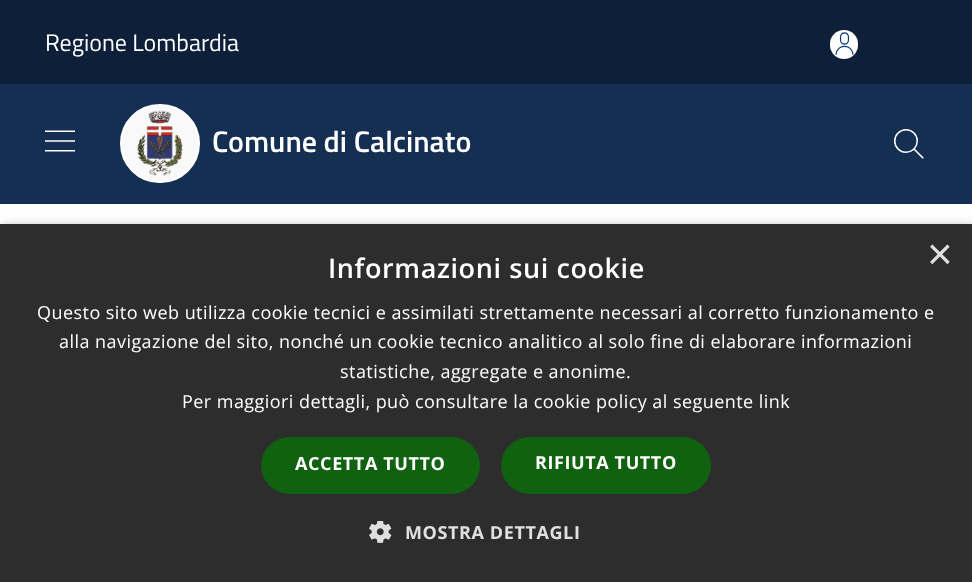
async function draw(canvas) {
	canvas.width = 972;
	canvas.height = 582;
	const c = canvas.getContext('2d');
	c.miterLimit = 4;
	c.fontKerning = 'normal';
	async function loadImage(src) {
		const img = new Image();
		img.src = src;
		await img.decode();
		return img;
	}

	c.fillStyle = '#fff';
	c.fillRect(0, 0, 972, 582);
	c.fillStyle = '#0e2039';
	c.fillRect(0, 0, 972, 84);
	c.font = '24px Titillium Web';
	c.fillStyle = '#fff';
	c.fillText('Regione Lombardia', 45, 51);
	c.beginPath();
	c.roundRect(830, 30, 28, 29, 14);
	c.fill();
	c.drawImage(await loadImage('img1.png'), 835, 32, 19, 23);
	c.fillStyle = '#152f52';
	c.fillRect(0, 84, 972, 120);
	c.drawImage(await loadImage('img2.png'), 45, 130, 30, 22);
	c.fillStyle = '#fff';
	c.beginPath();
	c.roundRect(121, 105, 78, 77, 38.5);
	c.fill();
	c.strokeStyle = '#fff';
	c.lineWidth = 2;
	c.stroke();
	c.drawImage(await loadImage('img3.png'), 122, 105, 76, 76);
	c.font = '600 30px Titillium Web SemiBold';
	c.fillText('Comune di Calcinato', 212, 152);
	c.drawImage(await loadImage('img4.png'), 894, 129, 30, 30);
	c.fillStyle = '#00000059';
	c.filter = 'blur(6px)';
	c.beginPath();
	c.rect(2, 227, 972, 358);
	c.fill();
	c.filter = 'none';
	c.fillStyle = '#2d2d2d';
	c.fillRect(0, 224, 972, 358);
	c.font = '44px Liberation Sans';
	c.fillStyle = '#e0e0e0';
	c.fillText('×', 927, 269);
	c.letterSpacing = '0.6px';
	c.font = '600 27px Open Sans';
	c.fillStyle = '#fff';
	c.fillText('Informazioni sui cookie', 328, 278);
	c.letterSpacing = '0.45px';
	c.font = '18px Open Sans';
	for (const [text, x, y] of [
		['Questo sito web utilizza cookie tecnici e assimilati strettamente necessari al corretto funzionamento e', 37, 319],
		['alla navigazione del sito, nonché un cookie tecnico analitico al solo fine di elaborare informazioni', 59, 348],
		['statistiche, aggregate e anonime.', 340, 378],
		['Per maggiori dettagli, può consultare la cookie policy al seguente link', 182, 408],
	]) {
		c.fillText(text, x, y);
	}
	c.fillStyle = '#106110';
	c.beginPath();
	c.roundRect(261, 437, 219, 57, 28.5);
	c.fill();
	c.letterSpacing = '0.6px';
	c.font = 'bold 18px Open Sans';
	c.fillStyle = '#fff';
	c.fillText('ACCETTA TUTTO', 295, 470);
	c.fillStyle = '#106110';
	c.beginPath();
	c.roundRect(501, 437, 210, 57, 28.5);
	c.fill();
	c.fillStyle = '#fff';
	c.fillText('RIFIUTA TUTTO', 535, 469);
	c.drawImage(await loadImage('img5.png'), 369, 521, 23, 22);
	c.fillStyle = '#e0e0e0';
	c.fillText('MOSTRA DETTAGLI', 405, 539);
}

draw(document.querySelector('canvas'));
